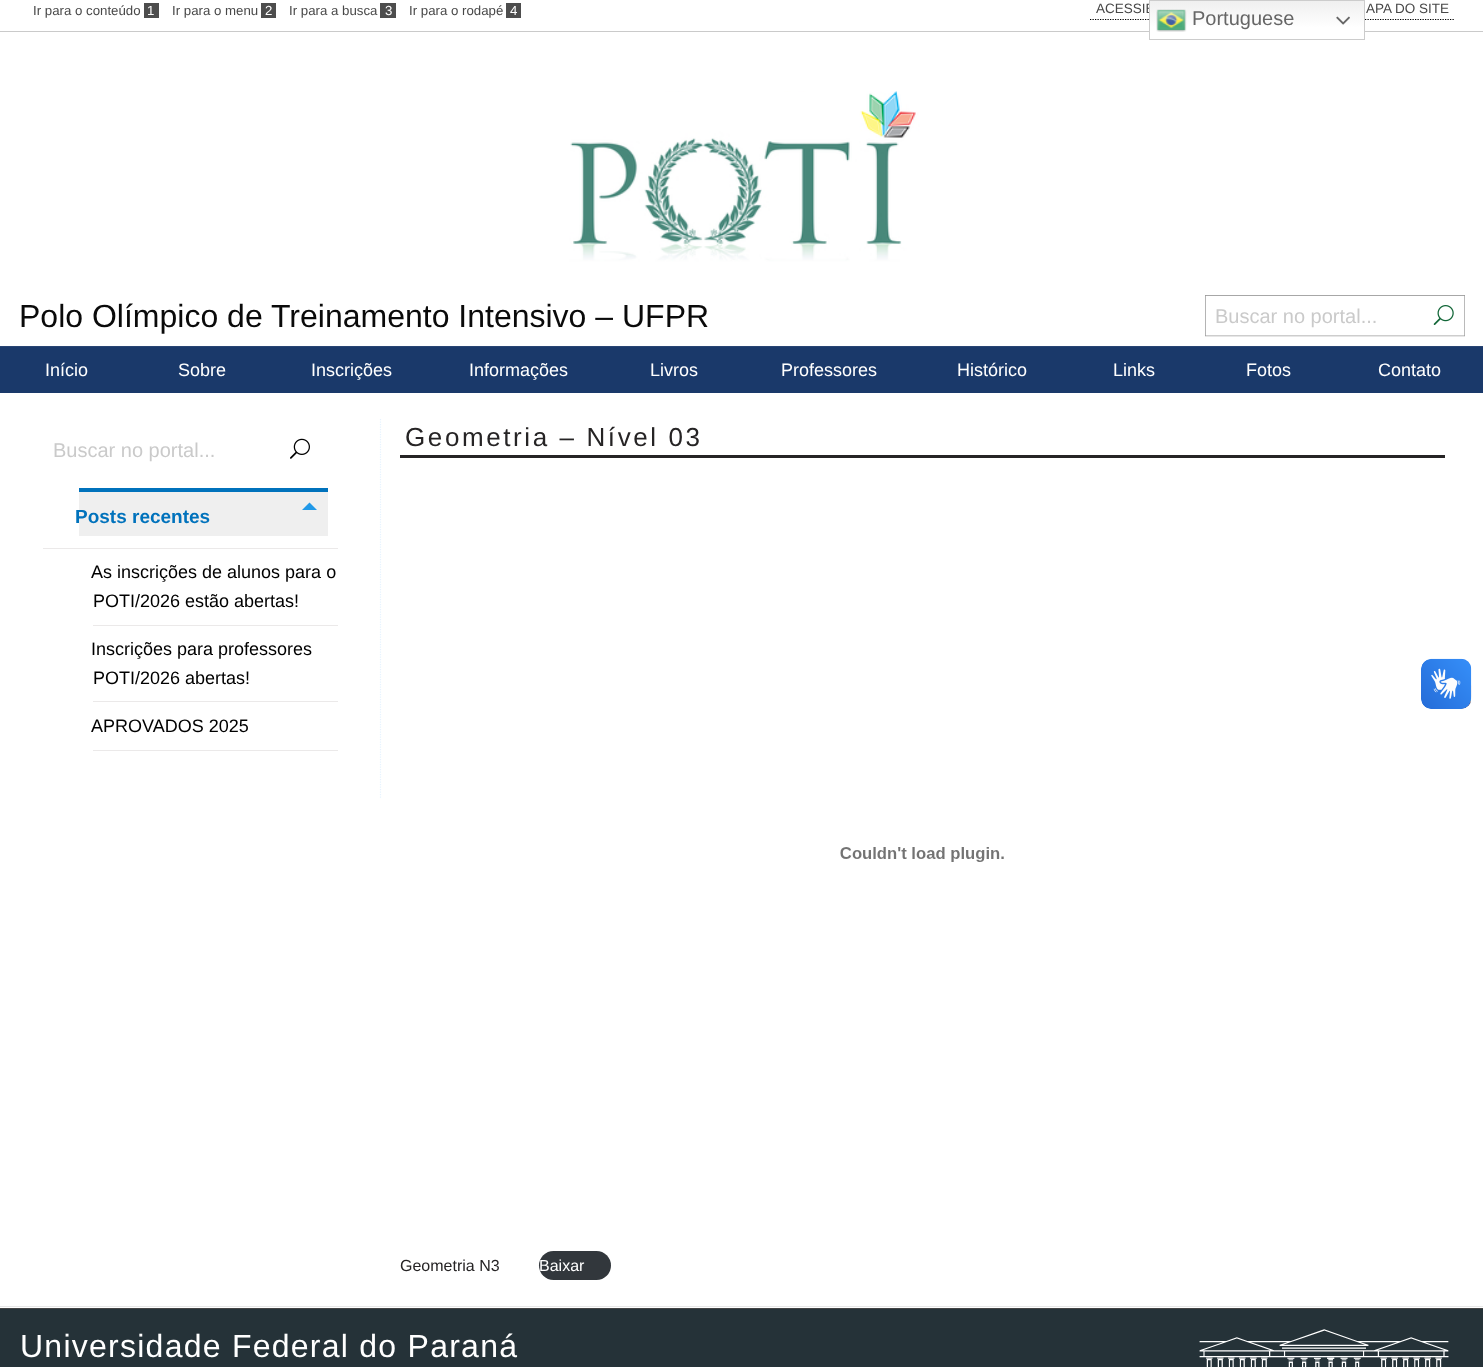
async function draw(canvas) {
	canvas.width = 1483;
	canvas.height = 1367;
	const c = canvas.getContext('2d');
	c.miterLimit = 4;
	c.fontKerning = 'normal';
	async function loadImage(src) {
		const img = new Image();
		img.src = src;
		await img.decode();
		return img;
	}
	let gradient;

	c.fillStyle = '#fff';
	c.fillRect(0, 0, 1483, 1367);
	c.font = '13.25px Liberation Sans';
	c.fillStyle = '#484848';
	c.fillText('Ir para o conteúdo', 33, 15);
	c.fillStyle = '#4d4d4d';
	c.fillRect(144, 3, 15, 15);
	c.fillStyle = '#fff';
	c.fillText('1', 147, 15);
	c.fillStyle = '#484848';
	c.fillText('Ir para o menu', 172, 15);
	c.fillStyle = '#4d4d4d';
	c.fillRect(261, 3, 15, 15);
	c.fillStyle = '#fff';
	c.fillText('2', 265, 15);
	c.fillStyle = '#484848';
	c.fillText('Ir para a busca', 289, 15);
	c.fillStyle = '#4d4d4d';
	c.fillRect(380, 3, 16, 15);
	c.fillStyle = '#fff';
	c.fillText('3', 385, 15);
	c.fillStyle = '#484848';
	c.fillText('Ir para o rodapé', 409, 15);
	c.fillStyle = '#4d4d4d';
	c.fillRect(506, 3, 15, 15);
	c.fillStyle = '#fff';
	c.fillText('4', 510, 15);
	c.beginPath();
	c.moveTo(1090, 19.5);
	c.lineTo(1454, 19.5);
	c.strokeStyle = '#000';
	c.lineWidth = 1.2;
	c.setLineDash([1.25, 1.25]);
	c.stroke();
	c.font = '13.5px Liberation Sans';
	c.fillStyle = '#484848';
	c.fillText('ACESSIB', 1096, 13);
	c.fillText('APA DO SITE', 1366, 13);
	c.fillStyle = '#cacaca';
	c.fillRect(0, 31, 1483, 1);
	gradient = c.createLinearGradient(1257, 0, 1257, 40);
	gradient.addColorStop(0, '#efefef');
	gradient.addColorStop(0.7, '#fff');
	c.fillStyle = gradient;
	c.fillRect(1150, 1, 214, 31);
	c.strokeStyle = '#ccc';
	c.lineWidth = 1;
	c.setLineDash([]);
	c.strokeRect(1149.5, 0.5, 215, 39);
	c.drawImage(await loadImage('img1.png'), 1156, 9, 31, 23);
	c.font = '20px Liberation Sans';
	c.fillStyle = '#666';
	c.fillText('Portuguese', 1192, 25);
	c.drawImage(await loadImage('img2.png'), 1336, 16, 14, 9);
	c.fillStyle = '#1a396a';
	c.fillRect(0, 346, 1483, 47);
	c.drawImage(await loadImage('img3.png'), 0, 91, 1483, 256);
	c.font = '32px Liberation Sans';
	c.fillStyle = '#0a0a0a';
	c.fillText('Polo Olímpico de Treinamento Intensivo – UFPR', 19, 327);
	c.drawImage(await loadImage('img4.png'), 1205, 295, 260, 42);
	c.font = '20px Liberation Sans';
	c.fillStyle = '#cacaca';
	c.fillText('Buscar no portal...', 1215, 323);
	c.drawImage(await loadImage('img5.png'), 1433, 305, 21, 20);
	c.font = '18px Liberation Sans';
	c.fillStyle = '#fff';
	for (const [text, x, y] of [
		['Início', 45, 376],
		['Sobre', 178, 376],
		['Inscrições', 311, 376],
		['Informações', 469, 376],
		['Livros', 650, 376],
		['Professores', 781, 376],
		['Histórico', 957, 376],
		['Links', 1113, 376],
		['Fotos', 1246, 376],
		['Contato', 1378, 376],
	]) {
		c.fillText(text, x, y);
	}
	c.beginPath();
	c.moveTo(380.5, 419);
	c.lineTo(380.5, 799);
	c.strokeStyle = '#e6f3ff';
	c.lineWidth = 1.2;
	c.setLineDash([1.25, 1.25]);
	c.stroke();
	c.font = '20px Liberation Sans';
	c.fillStyle = '#cacaca';
	c.fillText('Buscar no portal...', 53, 457);
	c.drawImage(await loadImage('img6.png'), 290, 438, 20, 21);
	c.fillStyle = '#ebe9e9';
	c.fillRect(43, 548, 295, 1);
	c.fillStyle = '#efefef';
	c.fillRect(79, 492, 249, 44);
	c.fillStyle = '#2199e8';
	c.beginPath();
	c.moveTo(302, 510);
	c.lineTo(317, 510);
	c.lineTo(309.5, 502.5);
	c.closePath();
	c.fill();
	c.fillStyle = '#0072bc';
	c.fillRect(79, 488, 249, 4);
	c.font = 'bold 19px Liberation Sans';
	c.fillText('Posts recentes', 75, 523);
	c.fillStyle = '#ebe9e9';
	c.fillRect(93, 625, 245, 1);
	c.font = '18px Liberation Sans';
	c.fillStyle = '#000';
	c.fillText('As inscrições de alunos para o', 91, 578);
	c.fillText('POTI/2026 estão abertas!', 93, 607);
	c.fillStyle = '#ebe9e9';
	c.fillRect(93, 701, 245, 1);
	c.fillStyle = '#000';
	c.fillText('Inscrições para professores', 91, 655);
	c.fillText('POTI/2026 abertas!', 93, 684);
	c.fillStyle = '#ebe9e9';
	c.fillRect(93, 750, 245, 1);
	c.fillStyle = '#000';
	c.fillText('APROVADOS 2025', 91, 732);
	c.fillStyle = '#262425';
	c.fillRect(400, 455, 1045, 3);
	c.letterSpacing = '2.6px';
	c.font = '26px Liberation Sans';
	c.fillText('Geometria – Nível 03', 405, 446);
	c.drawImage(await loadImage('img7.png'), 840, 847, 164, 15);
	c.letterSpacing = '0px';
	c.font = '16px Liberation Sans';
	c.fillText('Geometria N3', 400, 1271);
	c.fillStyle = '#32373c';
	c.beginPath();
	c.roundRect(539, 1251, 72, 29, 14.5);
	c.fill();
	c.fillStyle = '#fff';
	c.fillText('Baixar', 539, 1271);
	c.drawImage(await loadImage('img8.png'), 1421, 658, 51, 51);
	c.drawImage(await loadImage('img9.png'), 1421, 659, 50, 50);
	for (const [x, y, w, h, color] of [
		[0, 1306, 1483, 1, '#e7e7e7'],
		[0, 1309, 1483, 58, '#253238'],
		[0, 1308, 1483, 1, '#444'],
	]) {
		c.fillStyle = color;
		c.fillRect(x, y, w, h);
	}
	c.letterSpacing = '1.25px';
	c.font = '32px Liberation Sans';
	c.fillStyle = '#fff';
	c.fillText('Universidade Federal do Paraná', 20, 1357);
	c.drawImage(await loadImage('img10.png'), 1199, 1329, 250, 38);
}

draw(document.querySelector('canvas'));
